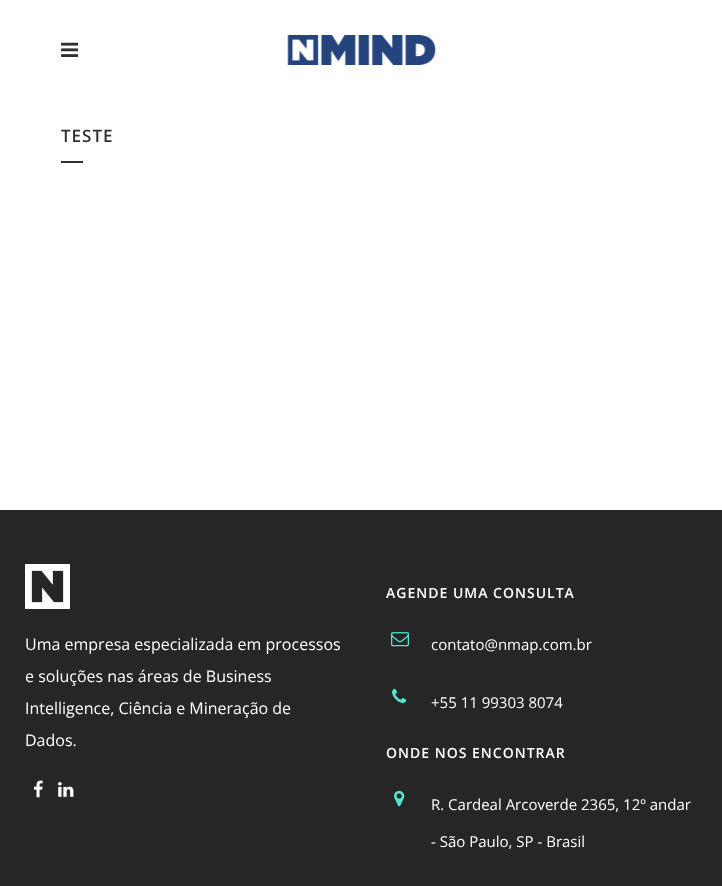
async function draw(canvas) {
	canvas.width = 722;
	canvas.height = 886;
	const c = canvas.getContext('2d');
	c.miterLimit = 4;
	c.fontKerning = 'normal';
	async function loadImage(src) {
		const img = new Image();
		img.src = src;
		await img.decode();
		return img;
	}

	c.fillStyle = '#fff';
	c.fillRect(0, 0, 722, 886);
	c.drawImage(await loadImage('img1.png'), 61, 42, 18, 15);
	c.drawImage(await loadImage('img2.png'), 287, 35, 149, 30);
	c.letterSpacing = '1px';
	c.font = '600 17px Open Sans';
	c.fillStyle = '#303030';
	c.fillText('TESTE', 61, 142);
	c.fillRect(61, 161, 22, 2);
	c.fillStyle = '#262626';
	c.fillRect(0, 510, 722, 376);
	c.drawImage(await loadImage('img3.png'), 25, 564, 45, 45);
	c.letterSpacing = '0px';
	c.font = '16px Open Sans';
	c.fillStyle = '#fff';
	for (const [text, x, y] of [
		['Uma empresa especializada em processos', 25, 650],
		['e soluções nas áreas de Business', 25, 682],
		['Intelligence, Ciência e Mineração de', 25, 714],
		['Dados.', 25, 746],
	]) {
		c.fillText(text, x, y);
	}
	c.drawImage(await loadImage('img4.png'), 33, 780, 10, 18);
	c.drawImage(await loadImage('img5.png'), 58, 782, 16, 15);
	c.letterSpacing = '1px';
	c.font = '600 14px Open Sans';
	c.fillText('AGENDE UMA CONSULTA', 386, 598);
	c.drawImage(await loadImage('img6.png'), 391, 632, 18, 15);
	c.letterSpacing = '0px';
	c.font = '15px Open Sans';
	c.fillText('contato@nmap.com.br', 431, 650);
	c.drawImage(await loadImage('img7.png'), 392, 688, 15, 15);
	c.fillText('+55 11 99303 8074', 431, 708);
	c.letterSpacing = '1px';
	c.font = '600 14px Open Sans';
	c.fillText('ONDE NOS ENCONTRAR', 386, 758);
	c.drawImage(await loadImage('img8.png'), 394, 790, 11, 17);
	c.letterSpacing = '0px';
	c.font = '15px Open Sans';
	c.fillText('R. Cardeal Arcoverde 2365, 12º andar', 431, 810);
	c.fillText('- São Paulo, SP - Brasil', 431, 847);
}

draw(document.querySelector('canvas'));
